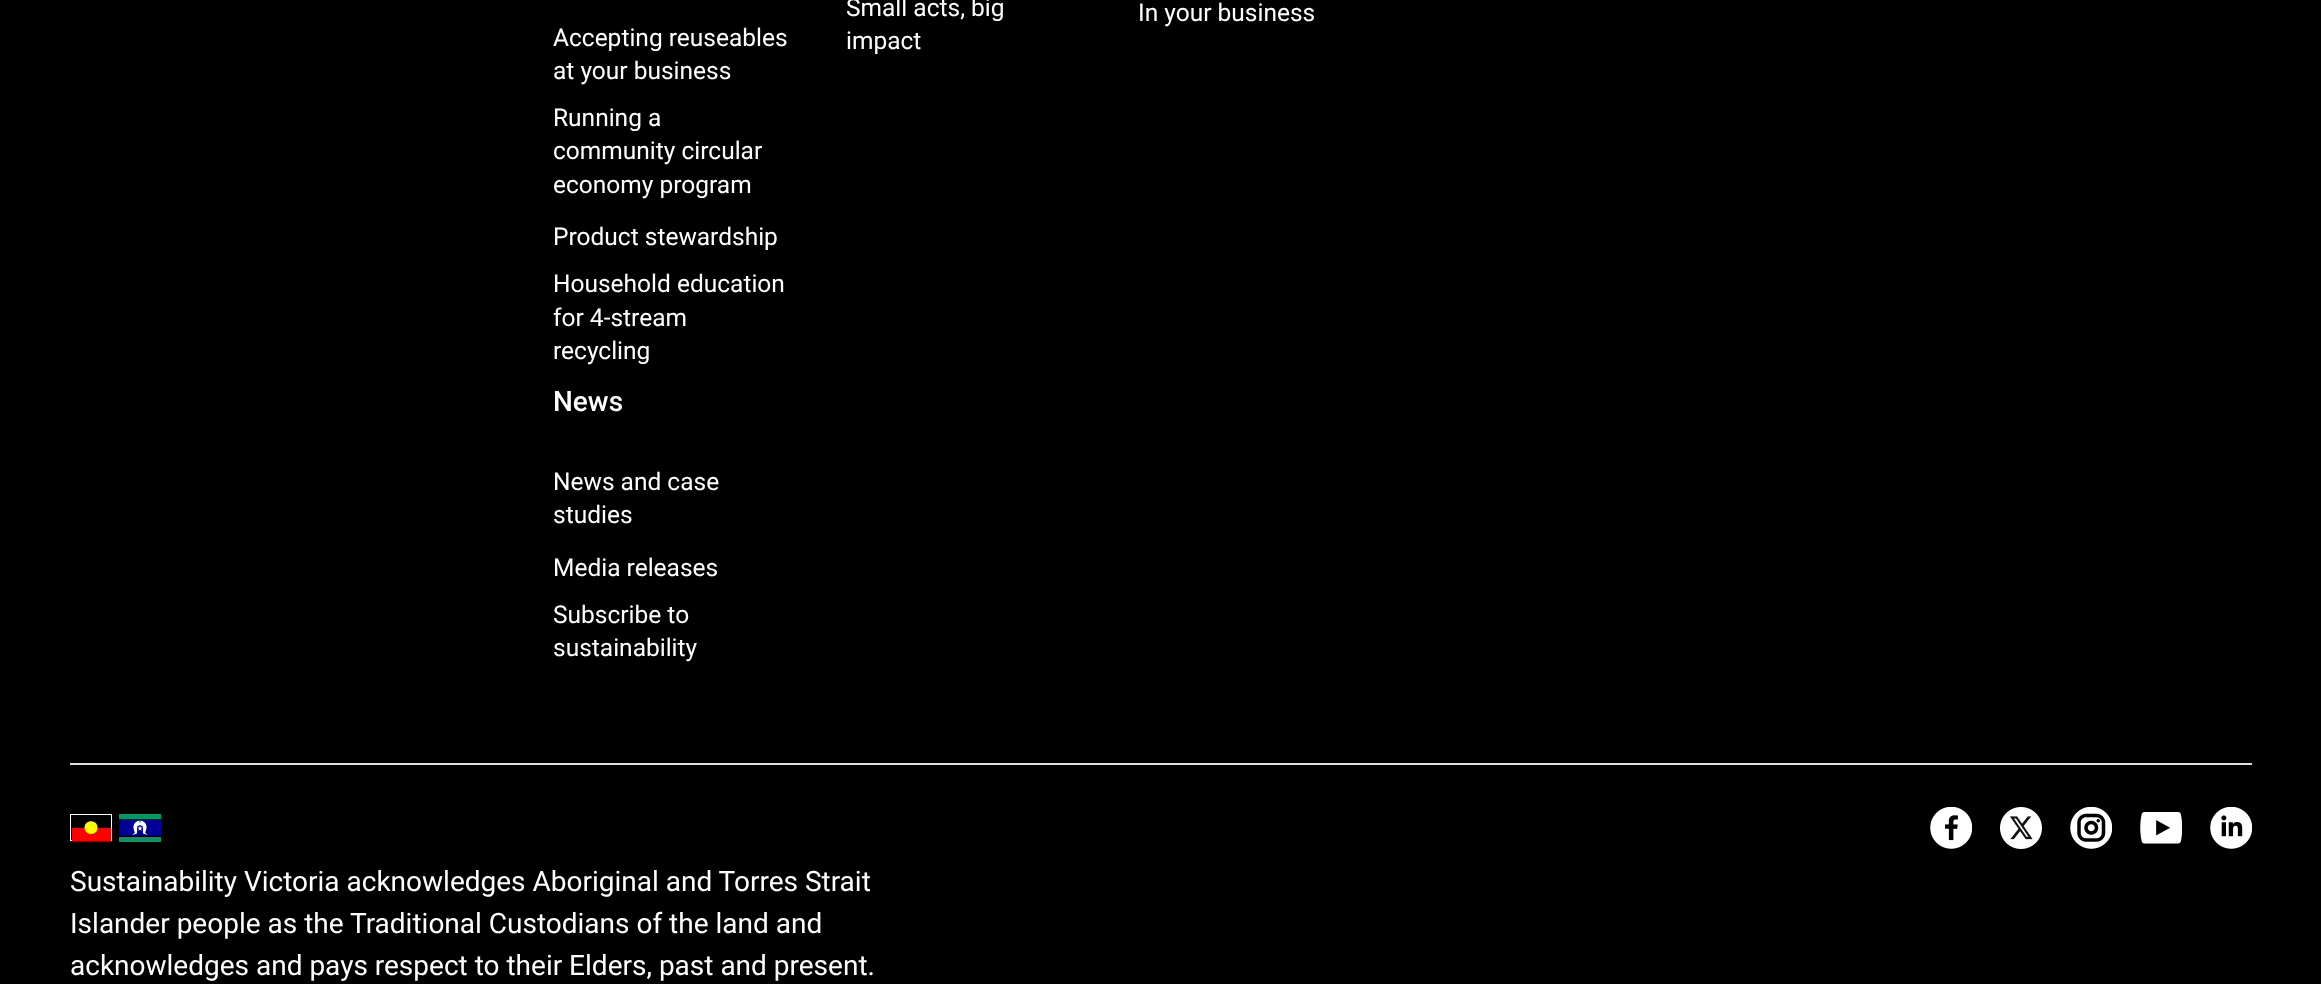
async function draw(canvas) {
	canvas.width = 2321;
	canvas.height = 984;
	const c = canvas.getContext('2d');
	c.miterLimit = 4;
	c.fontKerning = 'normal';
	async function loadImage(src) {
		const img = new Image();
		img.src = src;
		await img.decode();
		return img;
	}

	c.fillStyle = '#000';
	c.fillRect(0, 0, 2321, 984);
	c.fillStyle = '#dcdee2';
	c.fillRect(70, 763, 2182, 2);
	c.font = '24.5px Roboto';
	c.fillStyle = '#fff';
	for (const [text, x, y] of [
		['Small acts, big', 846, 16],
		['impact', 846, 49],
		['In your business', 1138, 21],
		['Accepting reuseables', 553, 46],
		['at your business', 553, 79],
		['Running a', 553, 126],
		['community circular', 553, 159],
		['economy program', 553, 193],
		['Product stewardship', 553, 245],
		['Household education', 553, 292],
		['for 4-stream', 553, 326],
		['recycling', 553, 359],
	]) {
		c.fillText(text, x, y);
	}
	c.font = '500 28px Roboto';
	c.fillText('News', 553, 411);
	c.font = '24.5px Roboto';
	for (const [text, x, y] of [
		['News and case', 553, 490],
		['studies', 553, 523],
		['Media releases', 553, 576],
		['Subscribe to', 553, 623],
		['sustainability', 553, 656],
	]) {
		c.fillText(text, x, y);
	}
	c.drawImage(await loadImage('img1.png'), 1930, 807, 42, 42);
	c.drawImage(await loadImage('img2.png'), 2000, 807, 42, 42);
	c.drawImage(await loadImage('img3.png'), 2070, 807, 42, 42);
	c.drawImage(await loadImage('img4.png'), 2140, 812, 42, 32);
	c.drawImage(await loadImage('img5.png'), 2210, 807, 42, 42);
	c.strokeStyle = '#fff';
	c.strokeRect(70.5, 814.5, 41, 26);
	c.drawImage(await loadImage('img6.png'), 119, 814, 42, 28);
	c.fillStyle = '#fe0000';
	c.fillRect(72, 828, 39, 13);
	c.fillStyle = '#fdfd00';
	c.beginPath();
	c.moveTo(97.5, 827.5);
	c.bezierCurveTo(97.5, 836, 84.5, 836, 84.5, 827.5);
	c.bezierCurveTo(84.5, 819, 97.5, 819, 97.5, 827.5);
	c.closePath();
	c.fill();
	c.font = '28px Roboto';
	c.fillStyle = '#fff';
	for (const [text, x, y] of [
		['Sustainability Victoria acknowledges Aboriginal and Torres Strait', 70, 891],
		['Islander people as the Traditional Custodians of the land and', 70, 933],
		['acknowledges and pays respect to their Elders, past and present.', 70, 975],
	]) {
		c.fillText(text, x, y);
	}
}

draw(document.querySelector('canvas'));
